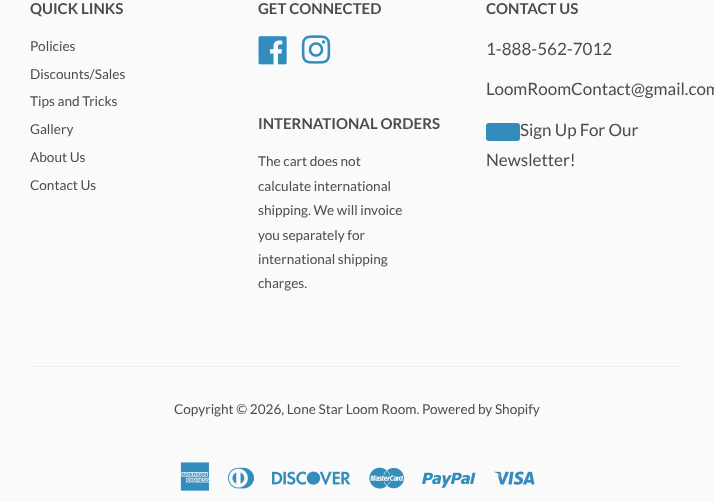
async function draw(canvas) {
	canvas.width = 714;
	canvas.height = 502;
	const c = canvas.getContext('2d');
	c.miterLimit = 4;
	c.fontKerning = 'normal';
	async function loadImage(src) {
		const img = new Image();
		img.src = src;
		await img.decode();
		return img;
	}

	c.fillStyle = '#fafafa';
	c.fillRect(0, 0, 714, 502);
	c.font = 'bold 15px Lato';
	c.fillStyle = '#4c4c4c';
	c.fillText('QUICK LINKS', 30, 14);
	c.font = '13.6px Lato';
	for (const [text, x, y] of [
		['Policies', 30, 51],
		['Discounts/Sales', 30, 79],
		['Tips and Tricks', 30, 106],
		['Gallery', 30, 134],
		['About Us', 30, 162],
		['Contact Us', 30, 190],
	]) {
		c.fillText(text, x, y);
	}
	c.font = 'bold 15px Lato';
	c.fillText('GET CONNECTED', 258, 14);
	c.drawImage(await loadImage('img1.png'), 258, 36, 29, 29);
	c.drawImage(await loadImage('img2.png'), 301, 35, 30, 29);
	c.fillText('INTERNATIONAL ORDERS', 258, 129);
	c.font = '13.6px Lato';
	for (const [text, x, y] of [
		['The cart does not', 258, 166],
		['calculate international', 258, 191],
		['shipping. We will invoice', 258, 215],
		['you separately for', 258, 240],
		['international shipping', 258, 264],
		['charges.', 258, 288],
	]) {
		c.fillText(text, x, y);
	}
	c.font = 'bold 15px Lato';
	c.fillText('CONTACT US', 486, 14);
	c.font = '17px Lato';
	c.fillText('1-888-562-7012', 486, 55);
	c.fillText('LoomRoomContact@gmail.com', 486, 95);
	c.fillStyle = '#338dbc';
	c.beginPath();
	c.roundRect(486, 123, 34, 18, 3);
	c.fill();
	c.fillStyle = '#4c4c4c';
	c.fillText('Sign Up For Our', 520, 136);
	c.fillText('Newsletter!', 486, 166);
	c.fillStyle = '#f0f0f0';
	c.fillRect(30, 366, 654, 1);
	c.font = '13.6px Lato';
	c.fillStyle = '#4c4c4c';
	c.fillText('Copyright © 2026, Lone Star Loom Room. Powered by Shopify', 174, 414);
	c.drawImage(await loadImage('img3.png'), 180, 462, 30, 29);
	c.drawImage(await loadImage('img4.png'), 228, 467, 26, 22);
	c.drawImage(await loadImage('img5.png'), 272, 471, 79, 14);
	c.drawImage(await loadImage('img6.png'), 369, 467, 35, 22);
	c.drawImage(await loadImage('img7.png'), 422, 472, 54, 16);
	c.drawImage(await loadImage('img8.png'), 494, 471, 41, 14);
}

draw(document.querySelector('canvas'));
